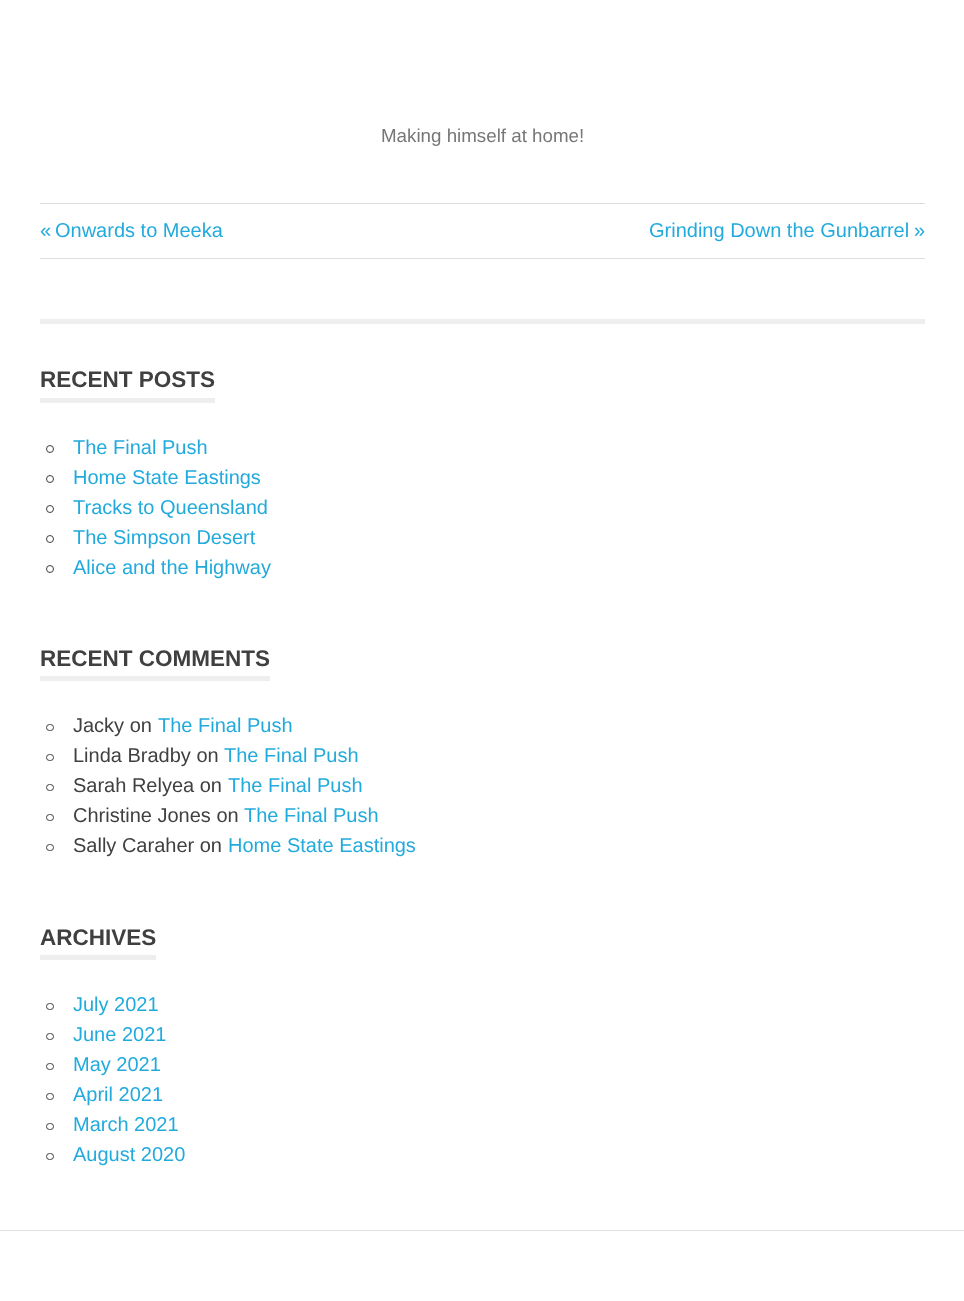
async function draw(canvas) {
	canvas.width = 964;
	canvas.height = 1301;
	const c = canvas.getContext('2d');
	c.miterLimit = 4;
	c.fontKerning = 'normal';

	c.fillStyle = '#fff';
	c.fillRect(0, 0, 964, 1301);
	c.font = '18.75px Liberation Sans';
	c.fillStyle = '#777';
	c.fillText('Making himself at home!', 381, 142);
	c.fillStyle = '#ddd';
	c.fillRect(40, 203, 885, 1);
	c.fillRect(40, 258, 885, 1);
	c.font = '20px Liberation Sans';
	c.fillStyle = '#2ad';
	for (const [text, x, y] of [
		['«', 40, 237],
		['Onwards to Meeka', 55, 237],
		['Grinding Down the Gunbarrel', 649, 237],
		['»', 914, 237],
	]) {
		c.fillText(text, x, y);
	}
	c.fillStyle = '#eee';
	c.fillRect(40, 319, 885, 5);
	c.fillRect(40, 398, 175, 5);
	c.font = 'bold 22.5px Liberation Sans';
	c.fillStyle = '#404040';
	c.fillText('RECENT POSTS', 40, 387);
	c.beginPath();
	c.arc(50, 449, 3.5, 0, 2 * Math.PI);
	c.strokeStyle = '#404040';
	c.stroke();
	c.font = '20px Liberation Sans';
	c.fillStyle = '#2ad';
	c.fillText('The Final Push', 73, 454);
	c.beginPath();
	c.arc(50, 479, 3.5, 0, 2 * Math.PI);
	c.stroke();
	c.fillText('Home State Eastings', 73, 484);
	c.beginPath();
	c.arc(50, 509, 3.5, 0, 2 * Math.PI);
	c.stroke();
	c.fillText('Tracks to Queensland', 73, 514);
	c.beginPath();
	c.arc(50, 539, 3.5, 0, 2 * Math.PI);
	c.stroke();
	c.fillText('The Simpson Desert', 73, 544);
	c.beginPath();
	c.arc(50, 569, 3.5, 0, 2 * Math.PI);
	c.stroke();
	c.fillText('Alice and the Highway', 73, 574);
	c.fillStyle = '#eee';
	c.fillRect(40, 676, 230, 5);
	c.font = 'bold 22.5px Liberation Sans';
	c.fillStyle = '#404040';
	c.fillText('RECENT COMMENTS', 40, 666);
	c.beginPath();
	c.roundRect(46.5, 724.5, 7, 6, 3);
	c.stroke();
	c.font = '20px Liberation Sans';
	c.fillText('Jacky on', 73, 732);
	c.fillStyle = '#2ad';
	c.fillText('The Final Push', 158, 732);
	c.beginPath();
	c.roundRect(46.5, 754.5, 7, 6, 3);
	c.stroke();
	c.fillStyle = '#404040';
	c.fillText('Linda Bradby on', 73, 762);
	c.fillStyle = '#2ad';
	c.fillText('The Final Push', 224, 762);
	c.beginPath();
	c.roundRect(46.5, 784.5, 7, 6, 3);
	c.stroke();
	c.fillStyle = '#404040';
	c.fillText('Sarah Relyea on', 73, 792);
	c.fillStyle = '#2ad';
	c.fillText('The Final Push', 228, 792);
	c.beginPath();
	c.roundRect(46.5, 814.5, 7, 6, 3);
	c.stroke();
	c.fillStyle = '#404040';
	c.fillText('Christine Jones on', 73, 822);
	c.fillStyle = '#2ad';
	c.fillText('The Final Push', 244, 822);
	c.beginPath();
	c.roundRect(46.5, 844.5, 7, 6, 3);
	c.stroke();
	c.fillStyle = '#404040';
	c.fillText('Sally Caraher on', 73, 852);
	c.fillStyle = '#2ad';
	c.fillText('Home State Eastings', 228, 852);
	c.fillStyle = '#eee';
	c.fillRect(40, 955, 116, 5);
	c.font = 'bold 22.5px Liberation Sans';
	c.fillStyle = '#404040';
	c.fillText('ARCHIVES', 40, 945);
	c.beginPath();
	c.roundRect(46.5, 1003.5, 7, 6, 3);
	c.stroke();
	c.font = '20px Liberation Sans';
	c.fillStyle = '#2ad';
	c.fillText('July 2021', 73, 1011);
	c.beginPath();
	c.roundRect(46.5, 1033.5, 7, 6, 3);
	c.stroke();
	c.fillText('June 2021', 73, 1041);
	c.beginPath();
	c.roundRect(46.5, 1063.5, 7, 6, 3);
	c.stroke();
	c.fillText('May 2021', 73, 1071);
	c.beginPath();
	c.roundRect(46.5, 1093.5, 7, 6, 3);
	c.stroke();
	c.fillText('April 2021', 73, 1101);
	c.beginPath();
	c.roundRect(46.5, 1123.5, 7, 6, 3);
	c.stroke();
	c.fillText('March 2021', 73, 1131);
	c.beginPath();
	c.roundRect(46.5, 1153.5, 7, 6, 3);
	c.stroke();
	c.fillText('August 2020', 73, 1161);
	c.fillStyle = '#e0e0e0';
	c.fillRect(0, 1230, 964, 1);
}

draw(document.querySelector('canvas'));
